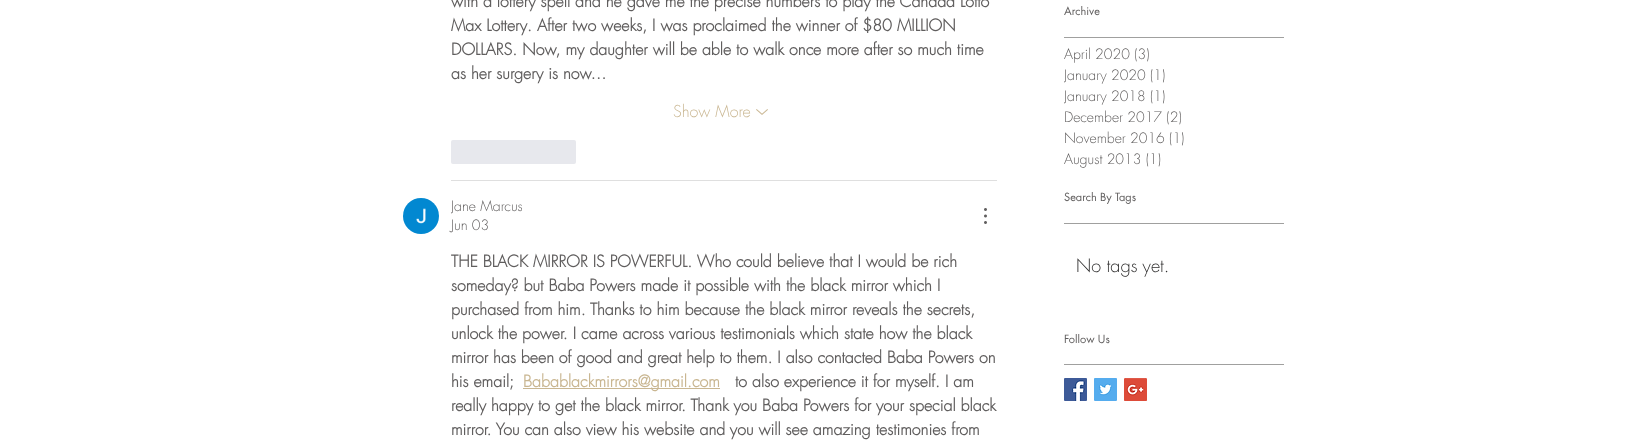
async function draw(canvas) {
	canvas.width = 1649;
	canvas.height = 443;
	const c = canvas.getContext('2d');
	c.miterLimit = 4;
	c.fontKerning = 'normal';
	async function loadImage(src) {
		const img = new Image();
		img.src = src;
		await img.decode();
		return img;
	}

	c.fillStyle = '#fff';
	c.fillRect(0, 0, 1649, 443);
	c.font = 'bold 16px futura';
	c.fillStyle = '#605e5e';
	for (const [text, x, y] of [
		['with a lottery spell and he gave me the precise numbers to play the Canada Lotto', 451, 7],
		['Max Lottery. After two weeks, I was proclaimed the winner of $80 MILLION', 451, 31],
		['DOLLARS. Now, my daughter will be able to walk once more after so much time', 451, 55],
		['as her surgery is now…', 451, 79],
	]) {
		c.fillText(text, x, y);
	}
	c.font = '300 16px futura';
	c.fillStyle = '#c9b691';
	c.fillText('Show More', 673, 117);
	c.drawImage(await loadImage('img1.png'), 756, 109, 12, 6);
	c.fillStyle = '#e7e8ed';
	c.beginPath();
	c.roundRect(451, 140, 125, 24, 2);
	c.fill();
	c.fillStyle = '#dfdfdf';
	c.fillRect(451, 180, 546, 1);
	c.drawImage(await loadImage('img2.png'), 403, 198, 36, 36);
	c.save();
	c.beginPath();
	c.rect(451, 197, 71, 19);
	c.clip();
	c.font = '300 14px futura';
	c.fillStyle = '#605e5e';
	c.fillText('Jane Marcus', 451, 211);
	c.restore();
	c.font = '300 14px futura';
	c.fillStyle = '#605e5e';
	c.fillText('Jun 03', 451, 230);
	c.drawImage(await loadImage('img3.png'), 984, 208, 3, 16);
	c.font = 'bold 16px futura';
	for (const [text, x, y] of [
		['THE BLACK MIRROR IS POWERFUL. Who could believe that I would be rich', 451, 267],
		['someday? but Baba Powers made it possible with the black mirror which I', 451, 291],
		['purchased from him. Thanks to him because the black mirror reveals the secrets,', 451, 315],
		['unlock the power. I came across various testimonials which state how the black', 451, 339],
		['mirror has been of good and great help to them. I also contacted Baba Powers on', 451, 363],
		['his email;', 451, 387],
	]) {
		c.fillText(text, x, y);
	}
	c.fillStyle = '#c9b691';
	c.fillRect(523, 388, 197, 1);
	c.fillText('Babablackmirrors@gmail.com', 523, 387);
	c.fillStyle = '#605e5e';
	for (const [text, x, y] of [
		['to also experience it for myself. I am', 735, 387],
		['really happy to get the black mirror. Thank you Baba Powers for your special black', 451, 411],
		['mirror. You can also view his website and you will see amazing testimonies from', 451, 435],
	]) {
		c.fillText(text, x, y);
	}
	c.font = '11px futura';
	c.fillText('Archive', 1064, 15);
	c.fillStyle = '#a0a09f';
	c.fillRect(1064, 37, 220, 1);
	c.font = '300 14px futura';
	c.fillStyle = '#605e5e';
	c.fillText('April 2020 (3)', 1064, 59);
	c.save();
	c.beginPath();
	c.rect(1064, 65, 101, 21);
	c.clip();
	c.fillText('January 2020', 1064, 80);
	c.restore();
	c.fillText('(1)', 1150, 80);
	c.save();
	c.beginPath();
	c.rect(1064, 86, 101, 21);
	c.clip();
	c.fillText('January 2018', 1064, 101);
	c.restore();
	for (const [text, x, y] of [
		['(1)', 1150, 101],
		['December 2017 (2)', 1064, 122],
		['November 2016 (1)', 1064, 143],
		['August 2013 (1)', 1064, 164],
	]) {
		c.fillText(text, x, y);
	}
	c.font = '11px futura';
	c.fillText('Search By Tags', 1064, 201);
	c.fillStyle = '#a0a09f';
	c.fillRect(1064, 223, 220, 1);
	c.font = '300 18px futura';
	c.fillStyle = '#2f2e2e';
	c.fillText('No tags yet.', 1076, 272);
	c.font = '11px futura';
	c.fillStyle = '#605e5e';
	c.fillText('Follow Us', 1064, 343);
	c.fillStyle = '#a0a09f';
	c.fillRect(1064, 364, 220, 1);
	c.drawImage(await loadImage('img4.png'), 1064, 378, 23, 23);
	c.drawImage(await loadImage('img5.png'), 1094, 378, 23, 23);
	c.drawImage(await loadImage('img6.png'), 1124, 378, 23, 23);
}

draw(document.querySelector('canvas'));
